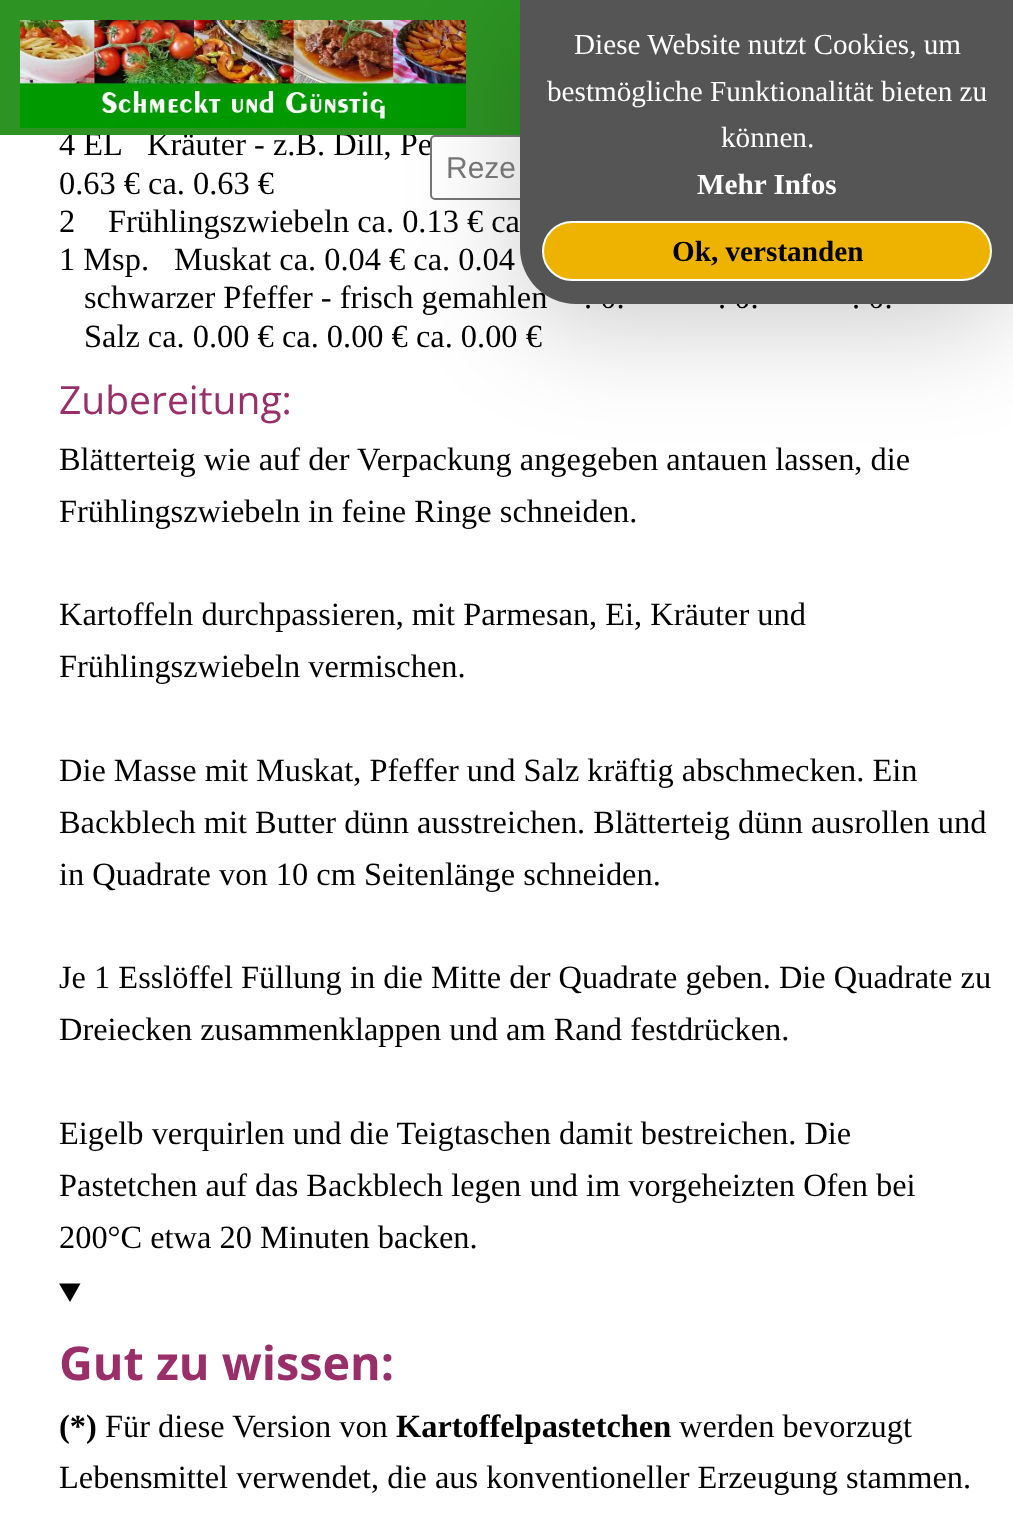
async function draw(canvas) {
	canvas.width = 1013;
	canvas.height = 1524;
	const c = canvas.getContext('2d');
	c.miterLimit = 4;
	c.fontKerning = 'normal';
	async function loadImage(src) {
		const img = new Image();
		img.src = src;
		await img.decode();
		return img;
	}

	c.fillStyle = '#fff';
	c.fillRect(0, 0, 1013, 1524);
	c.font = '32.4px Liberation Serif';
	c.fillStyle = '#000';
	c.fillText('4 EL', 59, 155);
	c.fillText('Kräuter - z.B. Dill, Pe', 147, 155);
	c.fillStyle = '#2d9424';
	c.fillRect(0, 0, 520, 135);
	c.drawImage(await loadImage('img1.png'), 20, 20, 446, 108);
	c.fillStyle = '#fff';
	c.beginPath();
	c.roundRect(431, 136, 428, 63, 4);
	c.fill();
	c.strokeStyle = '#767676';
	c.lineWidth = 2;
	c.stroke();
	c.fillStyle = '#00000033';
	c.filter = 'blur(56px)';
	c.beginPath();
	c.roundRect(520, 23, 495, 303, 56);
	c.fill();
	c.filter = 'none';
	c.fillStyle = '#000';
	for (const [text, x, y] of [
		['schwarzer Pfeffer - frisch gemahlen', 84, 308],
		['. 0.', 584, 308],
		['. 0.', 718, 308],
		['. 0.', 852, 308],
	]) {
		c.fillText(text, x, y);
	}
	c.fillStyle = '#555';
	c.beginPath();
	c.moveTo(520, 0);
	c.lineTo(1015, 0);
	c.lineTo(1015, 304);
	c.lineTo(576, 304);
	c.bezierCurveTo(545, 304, 520, 279, 520, 248);
	c.closePath();
	c.fill();
	c.font = '29.2px Liberation Serif';
	c.fillStyle = '#fff';
	for (const [text, x, y] of [
		['Diese Website nutzt Cookies, um', 574, 54],
		['bestmögliche Funktionalität bieten zu', 547, 101],
		['können.', 721, 147],
	]) {
		c.fillText(text, x, y);
	}
	c.font = 'bold 29.2px Liberation Serif';
	c.fillText('Mehr Infos', 697, 194);
	c.fillStyle = '#eeb300';
	c.beginPath();
	c.roundRect(543, 222, 448, 58, 29);
	c.fill();
	c.strokeStyle = '#fff';
	c.stroke();
	c.fillStyle = '#000';
	c.fillText('Ok, verstanden', 672, 261);
	c.font = '32.4px Liberation Serif';
	for (const [text, x, y] of [
		['0.63 € ca. 0.63 €', 59, 194],
		['2', 59, 232],
		['Frühlingszwiebeln ca. 0.13 € ca', 108, 232],
		['1 Msp.', 59, 270],
		['Muskat ca. 0.04 € ca. 0.04', 174, 270],
		['Salz ca. 0.00 € ca. 0.00 € ca. 0.00 €', 84, 347],
	]) {
		c.fillText(text, x, y);
	}
	c.font = '39px Open Sans';
	c.fillStyle = '#992e68';
	c.fillText('Zubereitung:', 59, 414);
	c.font = '32.4px Liberation Serif';
	c.fillStyle = '#000';
	for (const [text, x, y] of [
		['Blätterteig wie auf der Verpackung angegeben antauen lassen, die', 59, 470],
		['Frühlingszwiebeln in feine Ringe schneiden.', 59, 522],
		['Kartoffeln durchpassieren, mit Parmesan, Ei, Kräuter und', 59, 625],
		['Frühlingszwiebeln vermischen.', 59, 677],
		['Die Masse mit Muskat, Pfeffer und Salz kräftig abschmecken. Ein', 59, 781],
		['Backblech mit Butter dünn ausstreichen. Blätterteig dünn ausrollen und', 59, 833],
		['in Quadrate von 10 cm Seitenlänge schneiden.', 59, 885],
		['Je 1 Esslöffel Füllung in die Mitte der Quadrate geben. Die Quadrate zu', 59, 988],
		['Dreiecken zusammenklappen und am Rand festdrücken.', 59, 1040],
		['Eigelb verquirlen und die Teigtaschen damit bestreichen. Die', 59, 1144],
		['Pastetchen auf das Backblech legen und im vorgeheizten Ofen bei', 59, 1196],
		['200°C etwa 20 Minuten backen.', 59, 1248],
	]) {
		c.fillText(text, x, y);
	}
	c.beginPath();
	c.moveTo(59, 1283.5);
	c.lineTo(80.5, 1283.5);
	c.lineTo(70, 1302);
	c.closePath();
	c.fill();
	c.font = 'bold 46.75px Open Sans';
	c.fillStyle = '#992e68';
	c.fillText('Gut zu wissen:', 59, 1380);
	c.font = 'bold 32.4px Liberation Serif';
	c.fillStyle = '#000';
	c.fillText('(*)', 59, 1437);
	c.font = '32.4px Liberation Serif';
	c.fillText('Für diese Version von', 105, 1437);
	c.font = 'bold 32.4px Liberation Serif';
	c.fillText('Kartoffelpastetchen', 396, 1437);
	c.font = '32.4px Liberation Serif';
	c.fillText('werden bevorzugt', 679, 1437);
	c.fillText('Lebensmittel verwendet, die aus konventioneller Erzeugung stammen.', 59, 1488);
	c.font = '30px Liberation Sans';
	c.fillStyle = '#757575';
	c.fillText('Reze', 446, 178);
}

draw(document.querySelector('canvas'));
